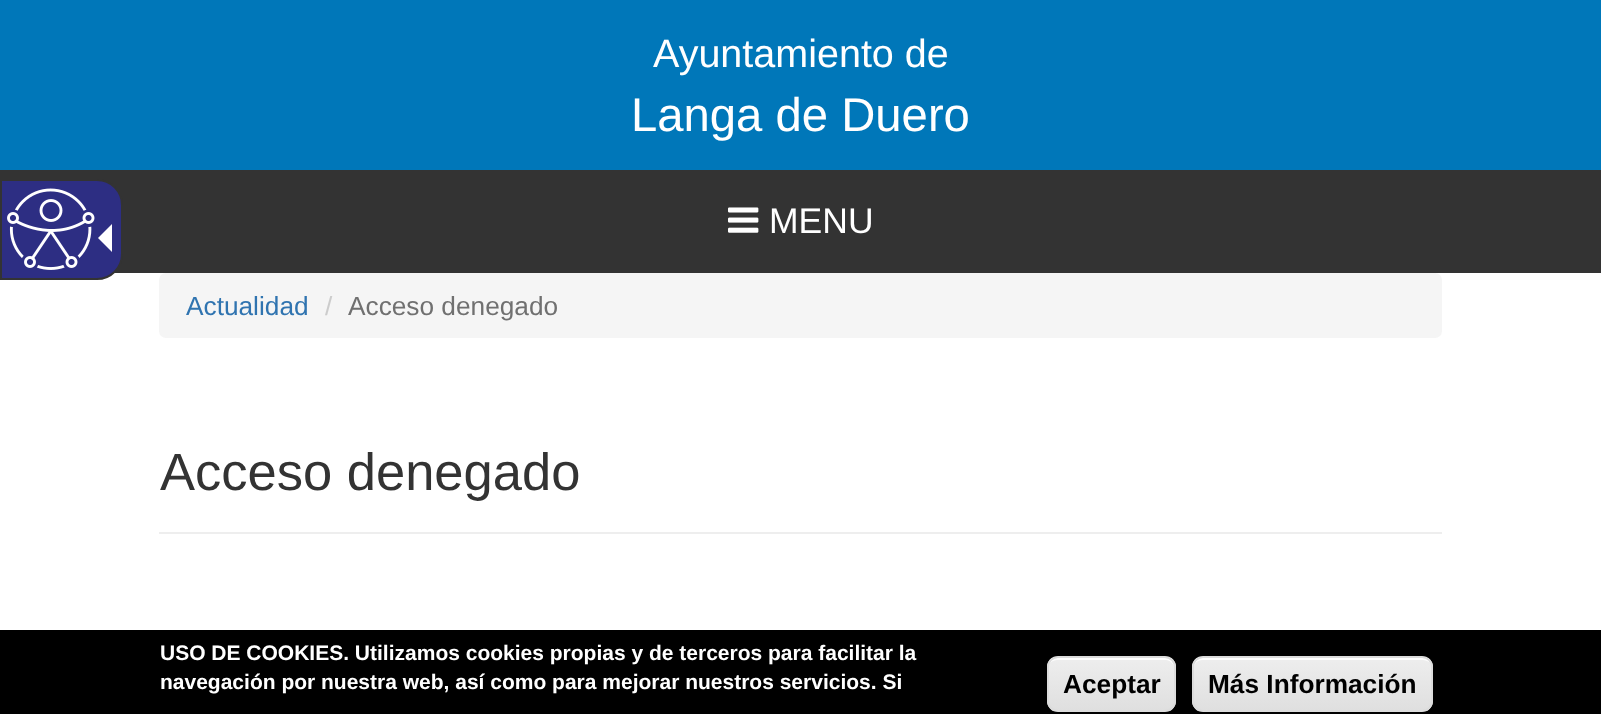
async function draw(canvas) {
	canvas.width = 1601;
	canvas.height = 714;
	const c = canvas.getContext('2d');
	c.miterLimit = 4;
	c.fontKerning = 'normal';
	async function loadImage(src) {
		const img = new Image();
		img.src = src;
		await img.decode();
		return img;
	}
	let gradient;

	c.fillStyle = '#fff';
	c.fillRect(0, 0, 1601, 714);
	c.fillStyle = '#333';
	c.fillRect(0, 170, 1601, 103);
	c.fillStyle = '#2d2e83';
	c.beginPath();
	c.roundRect(1, 180, 121, 99, [0, 25, 25, 0]);
	c.fill();
	c.strokeStyle = '#333';
	c.lineWidth = 2;
	c.stroke();
	c.drawImage(await loadImage('img1.png'), 7, 188, 88, 82);
	c.fillStyle = '#fff';
	c.beginPath();
	c.moveTo(112, 224);
	c.lineTo(112, 252);
	c.lineTo(98, 238);
	c.closePath();
	c.fill();
	c.fillStyle = '#0077b9';
	c.fillRect(0, 0, 1601, 170);
	c.font = '39.5px Liberation Sans';
	c.fillStyle = '#fff';
	c.fillText('Ayuntamiento de', 653, 67);
	c.font = '47.25px Liberation Sans';
	c.fillText('Langa de Duero', 631, 131);
	c.drawImage(await loadImage('img2.png'), 728, 207, 31, 26);
	c.font = '35.5px Liberation Sans';
	c.fillText('MENU', 769, 233);
	c.fillStyle = '#f5f5f5';
	c.beginPath();
	c.roundRect(159, 273, 1283, 65, 7);
	c.fill();
	c.font = '26.25px Liberation Sans';
	c.fillStyle = '#3074b0';
	c.fillText('Actualidad', 186, 315);
	c.fillStyle = '#ccc';
	c.fillText('/', 325, 315);
	c.fillStyle = '#707070';
	c.fillText('Acceso denegado', 348, 315);
	c.fillStyle = '#eee';
	c.fillRect(159, 532, 1283, 2);
	c.font = '52.5px Liberation Sans';
	c.fillStyle = '#333';
	c.fillText('Acceso denegado', 160, 490);
	c.fillStyle = '#000';
	c.fillRect(0, 630, 1601, 84);
	c.font = 'bold 21px Liberation Sans';
	c.fillStyle = '#fff';
	c.fillText('USO DE COOKIES. Utilizamos cookies propias y de terceros para facilitar la', 160, 660);
	c.fillText('navegación por nuestra web, así como para mejorar nuestros servicios. Si', 160, 689);
	c.save();
	c.beginPath();
	c.roundRect(1047, 656, 129, 56, 11);
	c.clip();
	gradient = c.createLinearGradient(1111, 658, 1111, 711);
	gradient.addColorStop(0.05, '#ededed');
	gradient.addColorStop(1, '#dfdfdf');
	c.fillStyle = gradient;
	c.fillRect(1047, 658, 129, 53);
	c.restore();
	c.beginPath();
	c.moveTo(1057, 660);
	c.lineTo(1166, 660);
	c.bezierCurveTo(1170, 660, 1174, 664, 1174, 668);
	c.bezierCurveTo(1174, 654, 1156, 658, 1147, 658);
	c.lineTo(1075, 658);
	c.bezierCurveTo(1066, 658, 1048, 654, 1048, 668);
	c.bezierCurveTo(1048, 664, 1052, 660, 1057, 660);
	c.closePath();
	c.fill();
	c.beginPath();
	c.roundRect(1048, 657, 127, 54, 10);
	c.strokeStyle = '#dcdcdc';
	c.stroke();
	c.font = 'bold 26.25px Liberation Sans';
	c.fillStyle = '#000';
	c.fillText('Aceptar', 1063, 693);
	c.save();
	c.beginPath();
	c.roundRect(1192, 656, 241, 56, 11);
	c.clip();
	gradient = c.createLinearGradient(1313, 658, 1313, 711);
	gradient.addColorStop(0.05, '#ededed');
	gradient.addColorStop(1, '#dfdfdf');
	c.fillStyle = gradient;
	c.fillRect(1192, 658, 241, 53);
	c.restore();
	c.fillStyle = '#fff';
	c.beginPath();
	c.moveTo(1202, 660);
	c.lineTo(1423, 660);
	c.bezierCurveTo(1428, 660, 1432, 664, 1432, 668);
	c.lineTo(1432, 667);
	c.bezierCurveTo(1432, 662, 1428, 658, 1423, 658);
	c.lineTo(1203, 658);
	c.bezierCurveTo(1198, 658, 1194, 662, 1194, 667);
	c.lineTo(1194, 668);
	c.bezierCurveTo(1194, 664, 1197, 660, 1202, 660);
	c.closePath();
	c.fill();
	c.beginPath();
	c.roundRect(1193, 657, 239, 54, 10);
	c.stroke();
	c.fillStyle = '#000';
	c.fillText('Más Información', 1208, 693);
}

draw(document.querySelector('canvas'));
